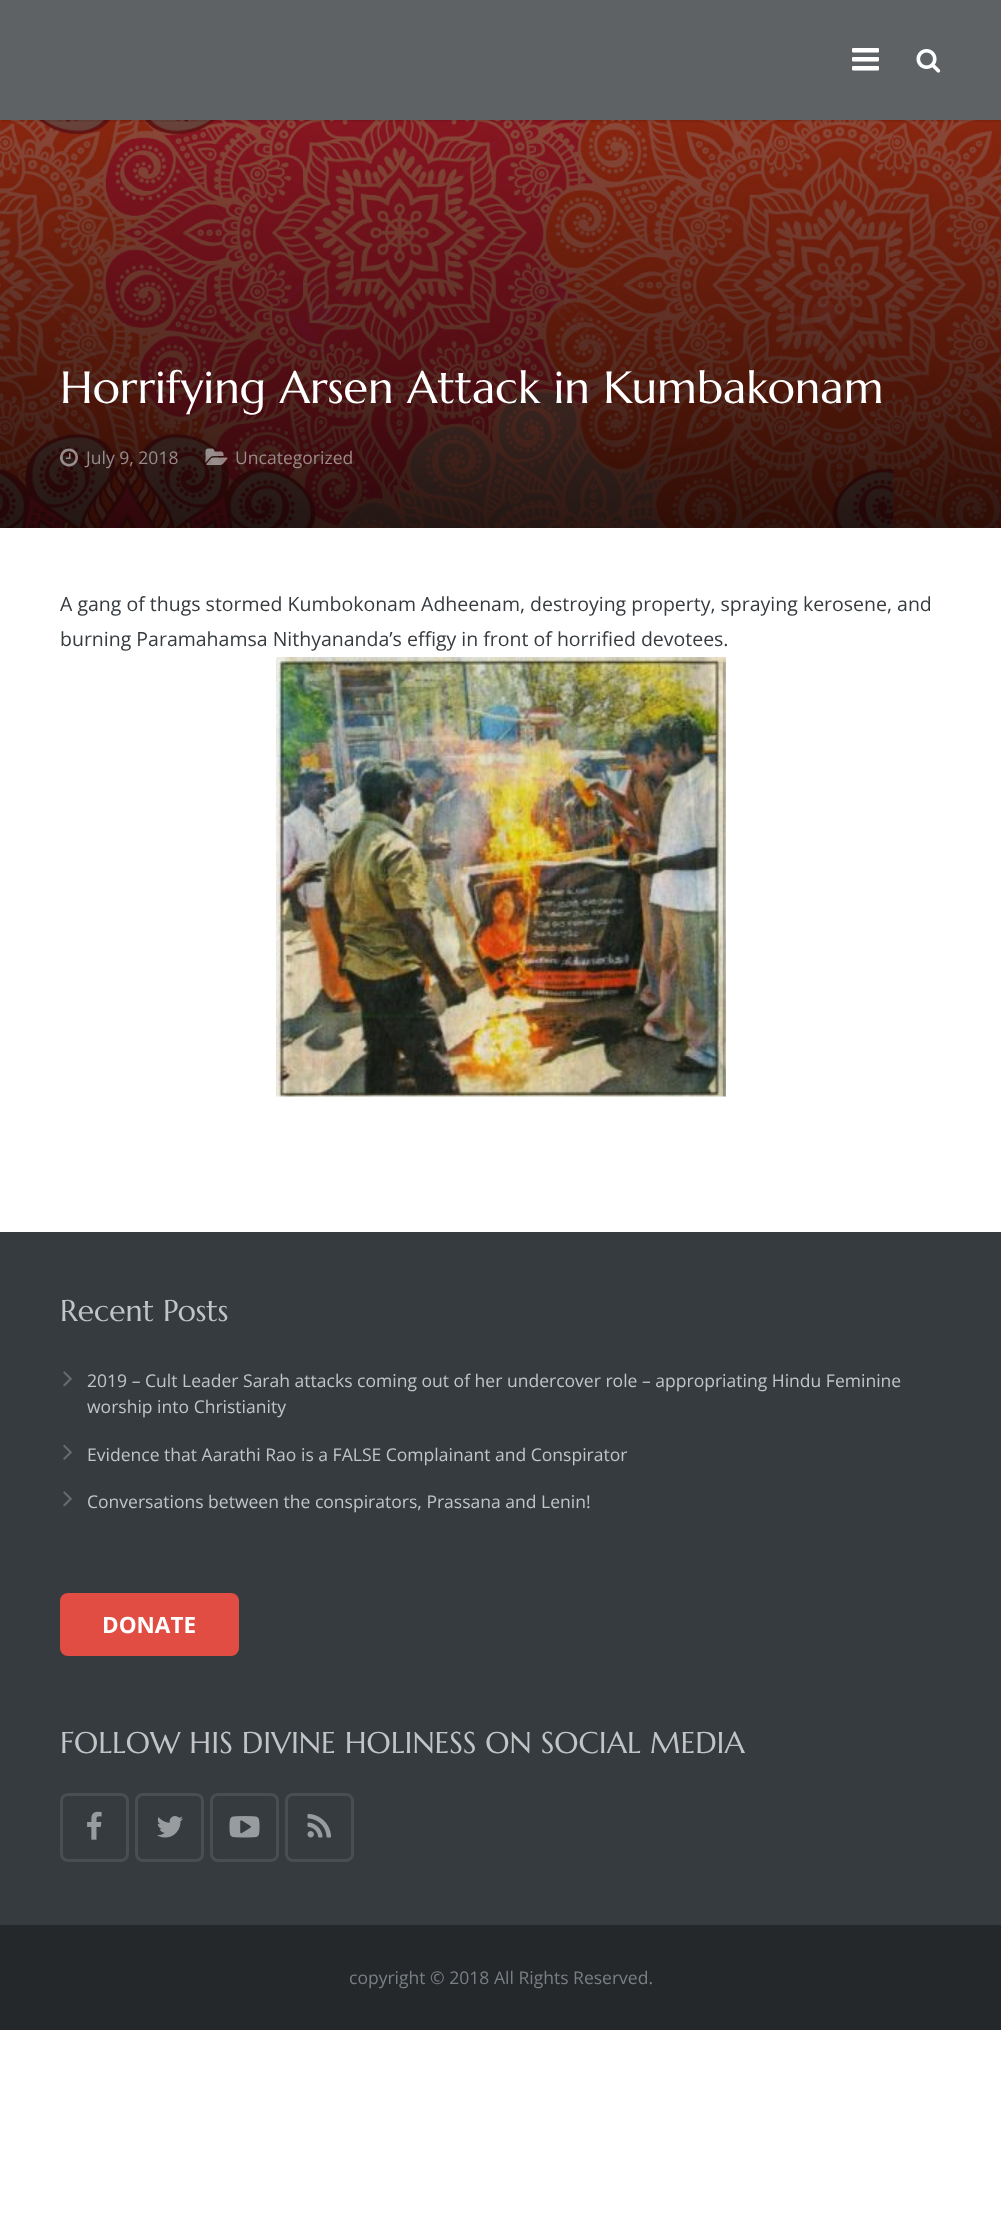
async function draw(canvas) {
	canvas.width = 1001;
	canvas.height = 2231;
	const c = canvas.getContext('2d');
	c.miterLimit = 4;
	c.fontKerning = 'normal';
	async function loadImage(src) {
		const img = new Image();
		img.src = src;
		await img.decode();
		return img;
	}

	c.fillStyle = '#fff';
	c.fillRect(0, 0, 1001, 2231);
	c.drawImage(await loadImage('img3.png'), 0, 120, 1001, 408);
	c.fillStyle = '#00000014';
	c.fillRect(2, 120, 999, 2);
	c.fillStyle = '#5e6265';
	c.fillRect(0, 0, 1001, 120);
	c.drawImage(await loadImage('img1.png'), 852, 48, 27, 23);
	c.drawImage(await loadImage('img2.png'), 916, 49, 25, 24);
	c.font = '45px Marcellus';
	c.fillStyle = '#fff';
	c.fillText('Horrifying Arsen Attack in Kumbakonam', 60, 403);
	c.drawImage(await loadImage('img4.png'), 60, 448, 18, 19);
	c.font = '17.55px Open Sans';
	c.fillStyle = '#988b89';
	c.fillText('July 9, 2018', 86, 464);
	c.drawImage(await loadImage('img5.png'), 205, 448, 23, 17);
	c.fillStyle = '#9e8989';
	c.fillText('Uncategorized', 235, 464);
	c.font = '19.5px Open Sans';
	c.fillStyle = '#363b3f';
	c.fillText('A gang of thugs stormed Kumbokonam Adheenam, destroying property, spraying kerosene, and', 60, 611);
	c.fillText('burning Paramahamsa Nithyananda’s effigy in front of horrified devotees.', 60, 646);
	c.drawImage(await loadImage('img6.png'), 276, 657, 450, 440);
	c.fillRect(0, 1232, 1001, 693);
	c.font = '30px Marcellus';
	c.fillStyle = '#c2c4c5';
	c.fillText('Recent Posts', 60, 1321);
	c.drawImage(await loadImage('img7.png'), 63, 1371, 9, 16);
	c.font = '17.55px Open Sans';
	c.fillText('2019 – Cult Leader Sarah attacks coming out of her undercover role – appropriating Hindu Feminine', 87, 1387);
	c.fillText('worship into Christianity', 87, 1413);
	c.drawImage(await loadImage('img8.png'), 63, 1444, 9, 16);
	c.fillText('Evidence that Aarathi Rao is a FALSE Complainant and Conspirator', 87, 1461);
	c.drawImage(await loadImage('img7.png'), 63, 1491, 9, 16);
	c.fillText('Conversations between the conspirators, Prassana and Lenin!', 87, 1508);
	c.fillStyle = '#e14d43';
	c.beginPath();
	c.roundRect(60, 1593, 179, 63, 8);
	c.fill();
	c.font = 'bold 22.5px Open Sans';
	c.fillStyle = '#fff';
	c.fillText('DONATE', 102, 1633);
	c.font = '30px Marcellus';
	c.fillStyle = '#c2c4c5';
	c.fillText('FOLLOW HIS DIVINE HOLINESS ON SOCIAL MEDIA', 60, 1753);
	c.beginPath();
	c.roundRect(61.5, 1794.5, 66, 66, 6.5);
	c.strokeStyle = '#494e52';
	c.lineWidth = 3;
	c.stroke();
	c.drawImage(await loadImage('img9.png'), 87, 1811, 15, 29);
	c.beginPath();
	c.roundRect(136.5, 1794.5, 66, 66, 6.5);
	c.stroke();
	c.drawImage(await loadImage('img10.png'), 157, 1816, 26, 22);
	c.beginPath();
	c.roundRect(211.5, 1794.5, 66, 66, 6.5);
	c.stroke();
	c.drawImage(await loadImage('img11.png'), 229, 1816, 31, 22);
	c.beginPath();
	c.roundRect(286.5, 1794.5, 66, 66, 6.5);
	c.stroke();
	c.drawImage(await loadImage('img12.png'), 307, 1813, 24, 25);
	c.fillStyle = '#25282b';
	c.fillRect(0, 1925, 1001, 105);
	c.font = '17.55px Open Sans';
	c.fillStyle = '#7a7f83';
	c.fillText('copyright © 2018 All Rights Reserved.', 349, 1984);
}

draw(document.querySelector('canvas'));
